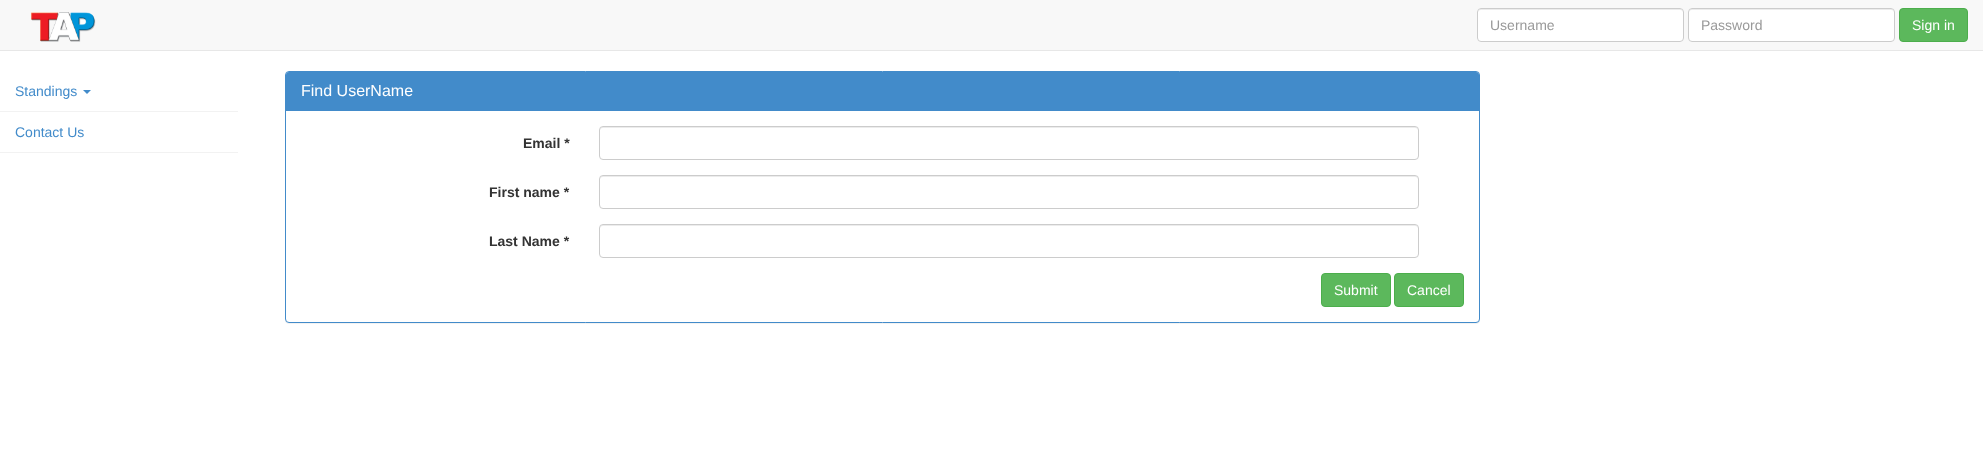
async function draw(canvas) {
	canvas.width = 1983;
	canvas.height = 462;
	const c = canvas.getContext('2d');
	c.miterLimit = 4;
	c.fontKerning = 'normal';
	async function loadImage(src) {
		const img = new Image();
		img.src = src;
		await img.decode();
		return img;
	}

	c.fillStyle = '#fff';
	c.fillRect(0, 0, 1983, 462);
	c.fillStyle = '#f8f8f8';
	c.fillRect(0, 0, 1983, 50);
	c.fillStyle = '#e7e7e7';
	c.fillRect(0, 50, 1983, 1);
	c.drawImage(await loadImage('img1.png'), 31, 12, 65, 30);
	c.fillStyle = '#fff';
	c.beginPath();
	c.roundRect(1477, 8, 207, 34, 4);
	c.fill();
	c.fillStyle = '#ececec';
	c.beginPath();
	c.moveTo(1481, 10);
	c.lineTo(1680, 10);
	c.bezierCurveTo(1682, 10, 1683, 11, 1683, 13);
	c.bezierCurveTo(1683, 11, 1682, 9, 1680, 9);
	c.lineTo(1481, 9);
	c.bezierCurveTo(1479, 9, 1478, 11, 1478, 13);
	c.bezierCurveTo(1478, 11, 1479, 10, 1481, 10);
	c.closePath();
	c.fill();
	c.beginPath();
	c.roundRect(1477.5, 8.5, 206, 33, 3.5);
	c.strokeStyle = '#ccc';
	c.stroke();
	c.font = '14px Liberation Sans';
	c.fillStyle = '#999';
	c.fillText('Username', 1490, 30);
	c.fillStyle = '#fff';
	c.beginPath();
	c.roundRect(1688, 8, 207, 34, 4);
	c.fill();
	c.fillStyle = '#ececec';
	c.beginPath();
	c.moveTo(1692, 10);
	c.lineTo(1891, 10);
	c.bezierCurveTo(1893, 10, 1894, 11, 1894, 13);
	c.bezierCurveTo(1894, 11, 1893, 9, 1891, 9);
	c.lineTo(1692, 9);
	c.bezierCurveTo(1690, 9, 1689, 11, 1689, 13);
	c.bezierCurveTo(1689, 11, 1690, 10, 1692, 10);
	c.closePath();
	c.fill();
	c.beginPath();
	c.roundRect(1688.5, 8.5, 206, 33, 3.5);
	c.stroke();
	c.fillStyle = '#999';
	c.fillText('Password', 1701, 30);
	c.fillStyle = '#5cb85c';
	c.beginPath();
	c.roundRect(1899.5, 8.5, 68, 33, 3.5);
	c.fill();
	c.strokeStyle = '#4cae4c';
	c.stroke();
	c.fillStyle = '#fff';
	c.fillText('Sign in', 1912, 30);
	c.fillStyle = '#f2f2f2';
	c.fillRect(0, 111, 238, 1);
	c.fillStyle = '#428bca';
	c.fillText('Standings', 15, 96);
	c.beginPath();
	c.moveTo(83, 90);
	c.lineTo(91, 90);
	c.lineTo(87, 94);
	c.closePath();
	c.fill();
	c.fillStyle = '#f2f2f2';
	c.fillRect(0, 152, 238, 1);
	c.fillStyle = '#428bca';
	c.fillText('Contact Us', 15, 137);
	c.fillStyle = '#0000000d';
	c.filter = 'blur(0.5px)';
	c.beginPath();
	c.roundRect(285, 72, 1195, 252, 4);
	c.fill();
	c.filter = 'none';
	c.fillStyle = '#fff';
	c.beginPath();
	c.roundRect(285.5, 71.5, 1194, 251, 3.5);
	c.fill();
	c.strokeStyle = '#428bca';
	c.stroke();
	c.fillStyle = '#428bca';
	c.beginPath();
	c.roundRect(286, 72, 1193, 39, [3, 3, 0, 0]);
	c.fill();
	c.font = '16px Liberation Sans';
	c.fillStyle = '#fff';
	c.fillText('Find UserName', 301, 96);
	c.font = 'bold 14px Liberation Sans';
	c.fillStyle = '#333';
	c.fillText('Email *', 523, 148);
	c.fillStyle = '#ececec';
	c.beginPath();
	c.moveTo(603, 128);
	c.lineTo(1415, 128);
	c.bezierCurveTo(1417, 128, 1418, 129, 1418, 131);
	c.bezierCurveTo(1418, 129, 1417, 127, 1415, 127);
	c.lineTo(603, 127);
	c.bezierCurveTo(601, 127, 600, 129, 600, 131);
	c.bezierCurveTo(600, 129, 601, 128, 603, 128);
	c.closePath();
	c.fill();
	c.beginPath();
	c.roundRect(599.5, 126.5, 819, 33, 3.5);
	c.strokeStyle = '#ccc';
	c.stroke();
	c.fillStyle = '#333';
	c.fillText('First name *', 489, 197);
	c.fillStyle = '#ececec';
	c.beginPath();
	c.moveTo(603, 177);
	c.lineTo(1415, 177);
	c.bezierCurveTo(1417, 177, 1418, 178, 1418, 180);
	c.bezierCurveTo(1418, 178, 1417, 176, 1415, 176);
	c.lineTo(603, 176);
	c.bezierCurveTo(601, 176, 600, 178, 600, 180);
	c.bezierCurveTo(600, 178, 601, 177, 603, 177);
	c.closePath();
	c.fill();
	c.beginPath();
	c.roundRect(599.5, 175.5, 819, 33, 3.5);
	c.stroke();
	c.fillStyle = '#333';
	c.fillText('Last Name *', 489, 246);
	c.fillStyle = '#ececec';
	c.beginPath();
	c.moveTo(603, 226);
	c.lineTo(1415, 226);
	c.bezierCurveTo(1417, 226, 1418, 227, 1418, 229);
	c.bezierCurveTo(1418, 227, 1417, 225, 1415, 225);
	c.lineTo(603, 225);
	c.bezierCurveTo(601, 225, 600, 227, 600, 229);
	c.bezierCurveTo(600, 227, 601, 226, 603, 226);
	c.closePath();
	c.fill();
	c.beginPath();
	c.roundRect(599.5, 224.5, 819, 33, 3.5);
	c.stroke();
	c.fillStyle = '#5cb85c';
	c.beginPath();
	c.roundRect(1321.5, 273.5, 69, 33, 3.5);
	c.fill();
	c.strokeStyle = '#4cae4c';
	c.stroke();
	c.font = '14px Liberation Sans';
	c.fillStyle = '#fff';
	c.fillText('Submit', 1334, 295);
	c.fillStyle = '#5cb85c';
	c.beginPath();
	c.roundRect(1394.5, 273.5, 69, 33, 3.5);
	c.fill();
	c.stroke();
	c.fillStyle = '#fff';
	c.fillText('Cancel', 1407, 295);
}

draw(document.querySelector('canvas'));
